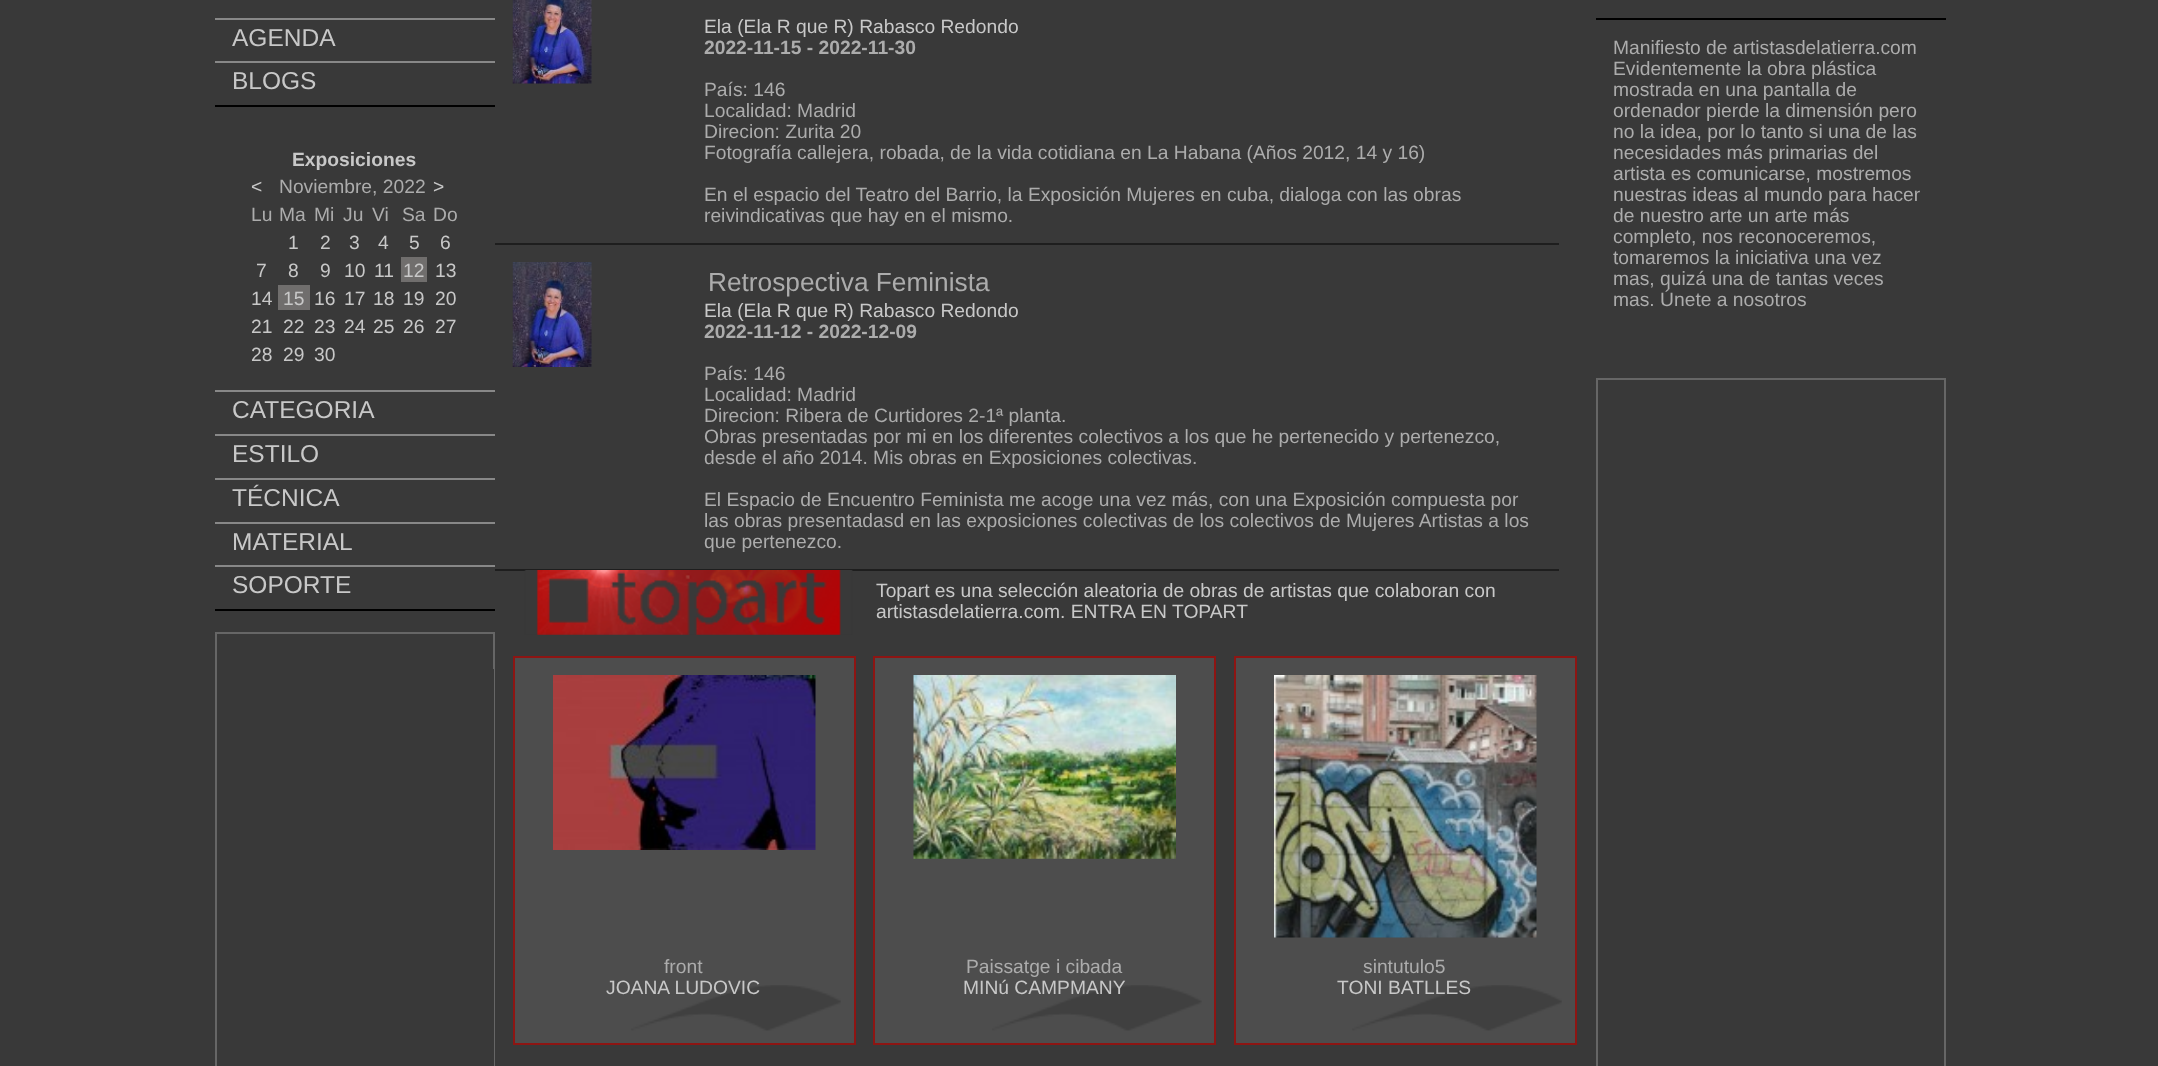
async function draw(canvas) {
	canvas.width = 2158;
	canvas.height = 1066;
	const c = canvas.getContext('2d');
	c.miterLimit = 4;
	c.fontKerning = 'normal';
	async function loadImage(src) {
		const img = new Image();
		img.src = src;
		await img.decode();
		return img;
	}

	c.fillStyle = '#393939';
	c.fillRect(0, 0, 2158, 1066);
	c.fillStyle = '#000';
	c.fillRect(215, 105, 280, 2);
	c.fillStyle = '#888';
	c.fillRect(215, 18, 280, 2);
	c.font = '24.5px Liberation Sans';
	c.fillStyle = '#c8c8c8';
	c.fillText('AGENDA', 232, 46);
	c.fillStyle = '#888';
	c.fillRect(215, 61, 280, 2);
	c.fillStyle = '#c8c8c8';
	c.fillText('BLOGS', 232, 89);
	c.font = 'bold 19.25px Liberation Sans';
	c.fillText('Exposiciones', 292, 166);
	c.font = '19.25px Liberation Sans';
	c.fillText('<', 251, 193);
	c.fillStyle = '#acacac';
	c.fillText('Noviembre, 2022', 279, 193);
	c.fillStyle = '#c8c8c8';
	c.fillText('>', 433, 193);
	c.fillStyle = '#acacac';
	for (const [text, x, y] of [
		['Lu', 251, 221],
		['Ma', 279, 221],
		['Mi', 314, 221],
		['Ju', 343, 221],
		['Vi', 372, 221],
		['Sa', 402, 221],
		['Do', 433, 221],
	]) {
		c.fillText(text, x, y);
	}
	c.fillStyle = '#c8c8c8';
	for (const [text, x, y] of [
		['1', 288, 249],
		['2', 320, 249],
		['3', 349, 249],
		['4', 378, 249],
		['5', 409, 249],
		['6', 440, 249],
		['7', 256, 277],
		['8', 288, 277],
		['9', 320, 277],
		['10', 344, 277],
		['11', 374, 277],
	]) {
		c.fillText(text, x, y);
	}
	c.fillStyle = '#706e6d';
	c.fillRect(401, 257, 26, 25);
	c.fillStyle = '#c8c8c8';
	for (const [text, x, y] of [
		['12', 403, 277],
		['13', 435, 277],
		['14', 251, 305],
	]) {
		c.fillText(text, x, y);
	}
	c.fillStyle = '#706e6d';
	c.fillRect(278, 285, 32, 25);
	c.fillStyle = '#c8c8c8';
	for (const [text, x, y] of [
		['15', 283, 305],
		['16', 314, 305],
		['17', 344, 305],
		['18', 373, 305],
		['19', 403, 305],
		['20', 435, 305],
		['21', 251, 333],
		['22', 283, 333],
		['23', 314, 333],
		['24', 344, 333],
		['25', 373, 333],
		['26', 403, 333],
		['27', 435, 333],
		['28', 251, 361],
		['29', 283, 361],
		['30', 314, 361],
	]) {
		c.fillText(text, x, y);
	}
	c.fillStyle = '#000';
	c.fillRect(215, 609, 280, 2);
	c.fillStyle = '#888';
	c.fillRect(215, 390, 280, 2);
	c.font = '24.5px Liberation Sans';
	c.fillStyle = '#c8c8c8';
	c.fillText('CATEGORIA', 232, 418);
	c.fillStyle = '#888';
	c.fillRect(215, 434, 280, 2);
	c.fillStyle = '#c8c8c8';
	c.fillText('ESTILO', 232, 462);
	c.fillStyle = '#888';
	c.fillRect(215, 478, 280, 2);
	c.fillStyle = '#c8c8c8';
	c.fillText('TÉCNICA', 232, 506);
	c.fillStyle = '#888';
	c.fillRect(215, 522, 280, 2);
	c.fillStyle = '#c8c8c8';
	c.fillText('MATERIAL', 232, 550);
	c.fillStyle = '#888';
	c.fillRect(215, 565, 280, 2);
	c.fillStyle = '#c8c8c8';
	c.fillText('SOPORTE', 232, 593);
	c.strokeStyle = '#666';
	c.lineWidth = 2;
	c.strokeRect(216, 633, 278, 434);
	c.fillStyle = '#393939';
	c.fillRect(493, 669, 1, 397);
	c.fillStyle = '#1e1e1e';
	c.fillRect(495, 243, 1064, 2);
	c.drawImage(await loadImage('img1.png'), 512, 0, 80, 84);
	c.font = '19.25px Liberation Sans';
	c.fillStyle = '#c8c8c8';
	c.fillText('Ela (Ela R que R) Rabasco Redondo', 704, 33);
	c.font = 'bold 19.25px Liberation Sans';
	c.fillStyle = '#acacac';
	c.fillText('2022-11-15 - 2022-11-30', 704, 54);
	c.font = '19.25px Liberation Sans';
	for (const [text, x, y] of [
		['País: 146', 704, 96],
		['Localidad: Madrid', 704, 117],
		['Direcion: Zurita 20', 704, 138],
		['Fotografía callejera, robada, de la vida cotidiana en La Habana (Años 2012, 14 y 16)', 704, 159],
		['En el espacio del Teatro del Barrio, la Exposición Mujeres en cuba, dialoga con las obras', 704, 201],
		['reivindicativas que hay en el mismo.', 704, 222],
	]) {
		c.fillText(text, x, y);
	}
	c.fillStyle = '#1e1e1e';
	c.fillRect(495, 569, 1064, 2);
	c.drawImage(await loadImage('img2.png'), 512, 262, 80, 105);
	c.font = '26.25px Liberation Sans';
	c.fillStyle = '#acacac';
	c.fillText('Retrospectiva Feminista', 708, 291);
	c.font = '19.25px Liberation Sans';
	c.fillStyle = '#c8c8c8';
	c.fillText('Ela (Ela R que R) Rabasco Redondo', 704, 317);
	c.font = 'bold 19.25px Liberation Sans';
	c.fillStyle = '#acacac';
	c.fillText('2022-11-12 - 2022-12-09', 704, 338);
	c.font = '19.25px Liberation Sans';
	for (const [text, x, y] of [
		['País: 146', 704, 380],
		['Localidad: Madrid', 704, 401],
		['Direcion: Ribera de Curtidores 2-1ª planta.', 704, 422],
		['Obras presentadas por mi en los diferentes colectivos a los que he pertenecido y pertenezco,', 704, 443],
		['desde el año 2014. Mis obras en Exposiciones colectivas.', 704, 464],
		['El Espacio de Encuentro Feminista me acoge una vez más, con una Exposición compuesta por', 704, 506],
		['las obras presentadasd en las exposiciones colectivas de los colectivos de Mujeres Artistas a los', 704, 527],
		['que pertenezco.', 704, 548],
	]) {
		c.fillText(text, x, y);
	}
	c.drawImage(await loadImage('img3.png'), 524, 570, 329, 65);
	c.fillStyle = '#c8c8c8';
	c.fillText('Topart es una selección aleatoria de obras de artistas que colaboran con', 876, 597);
	c.fillText('artistasdelatierra.com. ENTRA EN TOPART', 876, 618);
	c.fillStyle = '#4d4d4d';
	c.fillRect(515, 658, 339, 385);
	c.drawImage(await loadImage('img4.png'), 631, 985, 210, 46);
	c.strokeStyle = '#8d1513';
	c.strokeRect(514, 657, 341, 387);
	c.drawImage(await loadImage('img5.png'), 553, 675, 263, 175);
	c.fillStyle = '#acacac';
	c.fillText('front', 664, 973);
	c.fillStyle = '#c8c8c8';
	c.fillText('JOANA LUDOVIC', 606, 994);
	c.fillStyle = '#4d4d4d';
	c.fillRect(875, 658, 339, 385);
	c.drawImage(await loadImage('img6.png'), 992, 985, 210, 46);
	c.strokeRect(874, 657, 341, 387);
	c.drawImage(await loadImage('img7.png'), 913, 675, 263, 184);
	c.fillStyle = '#acacac';
	c.fillText('Paissatge i cibada', 966, 973);
	c.fillStyle = '#c8c8c8';
	c.fillText('MINú CAMPMANY', 963, 994);
	c.fillStyle = '#4d4d4d';
	c.fillRect(1236, 658, 339, 385);
	c.drawImage(await loadImage('img8.png'), 1352, 985, 210, 46);
	c.strokeRect(1235, 657, 341, 387);
	c.drawImage(await loadImage('img9.png'), 1274, 675, 263, 263);
	c.fillStyle = '#acacac';
	c.fillText('sintutulo5', 1363, 973);
	c.fillStyle = '#c8c8c8';
	c.fillText('TONI BATLLES', 1337, 994);
	c.fillStyle = '#000';
	c.fillRect(1596, 18, 350, 2);
	c.fillStyle = '#acacac';
	for (const [text, x, y] of [
		['Manifiesto de artistasdelatierra.com', 1613, 54],
		['Evidentemente la obra plástica', 1613, 75],
		['mostrada en una pantalla de', 1613, 96],
		['ordenador pierde la dimensión pero', 1613, 117],
		['no la idea, por lo tanto si una de las', 1613, 138],
		['necesidades más primarias del', 1613, 159],
		['artista es comunicarse, mostremos', 1613, 180],
		['nuestras ideas al mundo para hacer', 1613, 201],
		['de nuestro arte un arte más', 1613, 222],
		['completo, nos reconoceremos,', 1613, 243],
		['tomaremos la iniciativa una vez', 1613, 264],
		['mas, quizá una de tantas veces', 1613, 285],
		['mas. Únete a nosotros', 1613, 306],
	]) {
		c.fillText(text, x, y);
	}
	c.strokeStyle = '#666';
	c.strokeRect(1597, 379, 348, 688);
}

draw(document.querySelector('canvas'));
